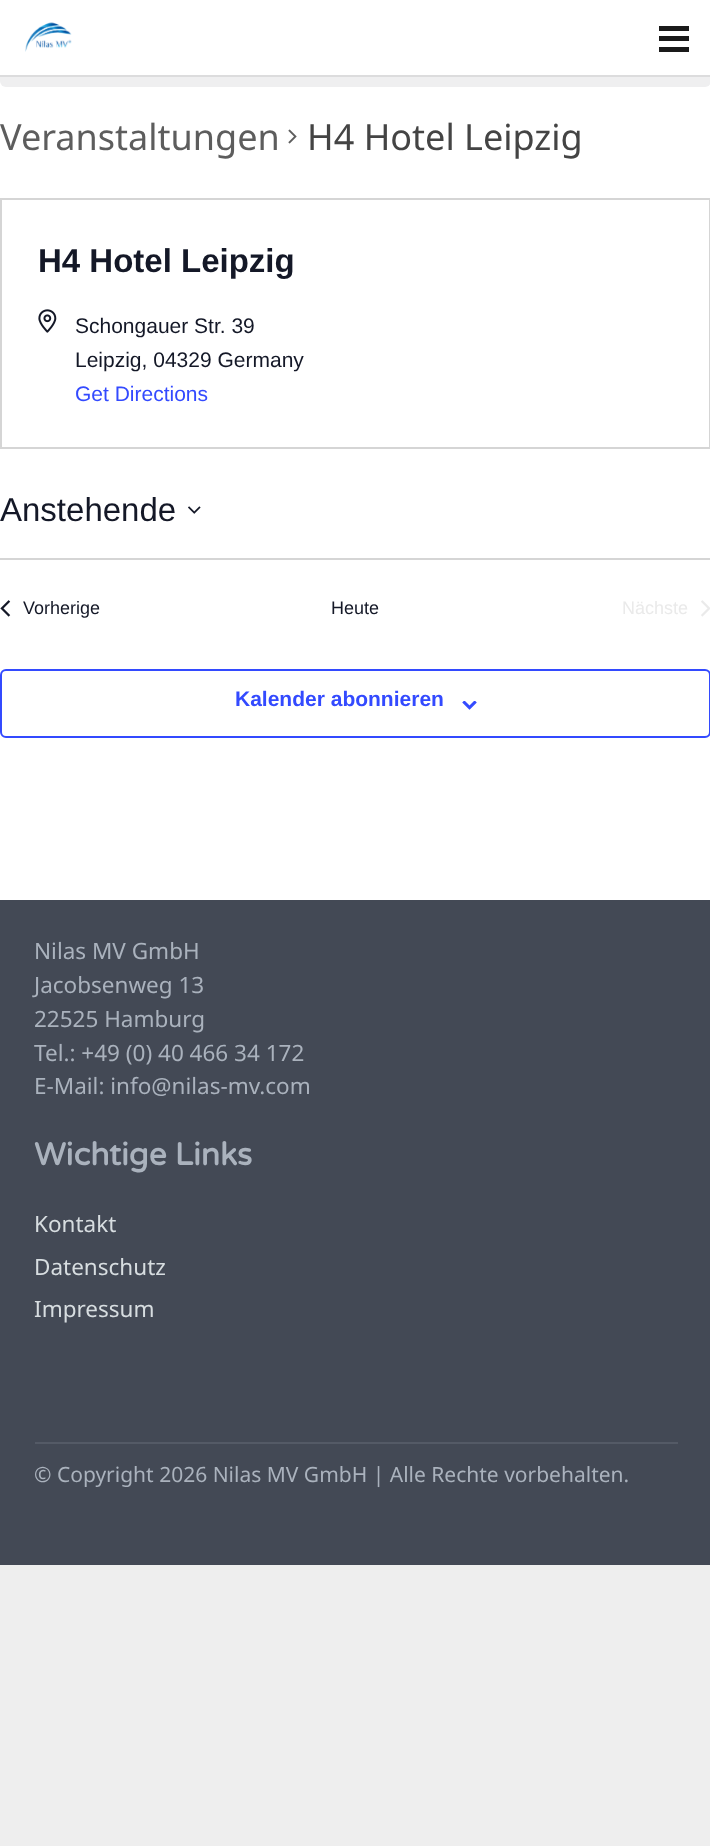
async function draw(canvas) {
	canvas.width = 710;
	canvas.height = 1846;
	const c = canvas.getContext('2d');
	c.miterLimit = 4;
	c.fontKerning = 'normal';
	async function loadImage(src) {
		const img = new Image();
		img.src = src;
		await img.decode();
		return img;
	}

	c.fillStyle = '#eee';
	c.fillRect(0, 0, 710, 1846);
	c.fillStyle = '#fff';
	c.fillRect(0, 81, 710, 819);
	c.fillStyle = '#efeff0';
	c.beginPath();
	c.roundRect(0, 15, 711, 72, 6);
	c.fill();
	c.fillStyle = '#dcdcdd';
	c.fillRect(0, 75, 710, 2);
	c.fillStyle = '#fff';
	c.fillRect(0, 0, 710, 75);
	c.drawImage(await loadImage('img1.png'), 25, 22, 47, 30);
	for (const [x, y, w, h, color] of [
		[659, 36, 30, 5, '#1a1a1a'],
		[659, 26, 30, 5, '#1a1a1a'],
		[659, 47, 30, 5, '#1a1a1a'],
	]) {
		c.fillStyle = color;
		c.fillRect(x, y, w, h);
	}
	c.font = '36px Noto Sans';
	c.fillStyle = '#5d5d5d';
	c.fillText('Veranstaltungen', 0, 150);
	c.drawImage(await loadImage('img2.png'), 288, 129, 9, 15);
	c.fillStyle = '#444';
	c.fillText('H4 Hotel Leipzig', 307, 150);
	c.strokeStyle = '#d5d5d5';
	c.lineWidth = 2;
	c.strokeRect(1, 199, 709, 249);
	c.font = 'bold 33px Liberation Sans';
	c.fillStyle = '#141827';
	c.fillText('H4 Hotel Leipzig', 38, 272);
	c.drawImage(await loadImage('img3.png'), 38, 309, 19, 24);
	c.font = '21px Liberation Sans';
	c.fillText('Schongauer Str. 39', 75, 333);
	c.fillText('Leipzig, 04329 Germany', 75, 367);
	c.fillStyle = '#334aff';
	c.fillText('Get Directions', 75, 401);
	c.font = '33px Liberation Sans';
	c.fillStyle = '#141827';
	c.fillText('Anstehende', 0, 521);
	c.drawImage(await loadImage('img4.png'), 188, 506, 13, 8);
	c.fillStyle = '#d5d5d5';
	c.fillRect(0, 558, 710, 2);
	c.drawImage(await loadImage('img5.png'), 0, 600, 11, 17);
	c.font = '18px Liberation Sans';
	c.fillStyle = '#141827';
	c.fillText('Vorherige', 23, 614);
	c.fillText('Heute', 331, 614);
	c.fillStyle = '#eaeaea';
	c.fillText('Nächste', 622, 614);
	c.drawImage(await loadImage('img6.png'), 701, 600, 9, 17);
	c.beginPath();
	c.roundRect(1, 670, 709, 67, 5);
	c.strokeStyle = '#334aff';
	c.stroke();
	c.font = 'bold 21px Liberation Sans';
	c.fillStyle = '#334aff';
	c.fillText('Kalender abonnieren', 235, 706);
	c.drawImage(await loadImage('img7.png'), 462, 701, 15, 9);
	c.fillStyle = '#434955';
	c.fillRect(0, 900, 710, 665);
	c.font = '22.5px Noto Sans';
	c.fillStyle = '#aab2bd';
	for (const [text, x, y] of [
		['Nilas MV GmbH', 34, 959],
		['Jacobsenweg 13', 34, 993],
		['22525 Hamburg', 34, 1027],
		['Tel.: +49 (0) 40 466 34 172', 34, 1061],
		['E-Mail: info@nilas-mv.com', 34, 1094],
	]) {
		c.fillText(text, x, y);
	}
	c.font = 'bold 31.5px Varela Round';
	c.fillText('Wichtige Links', 34, 1165);
	c.font = '22.5px Noto Sans';
	c.fillStyle = '#d7dde0';
	for (const [text, x, y] of [
		['Kontakt', 34, 1232],
		['Datenschutz', 34, 1275],
		['Impressum', 34, 1317],
	]) {
		c.fillText(text, x, y);
	}
	c.fillStyle = '#545a66';
	c.fillRect(35, 1442, 643, 2);
	c.font = '21px Noto Sans';
	c.fillStyle = '#aab2bd';
	c.fillText('© Copyright 2026 Nilas MV GmbH | Alle Rechte vorbehalten.', 34, 1482);
}

draw(document.querySelector('canvas'));
